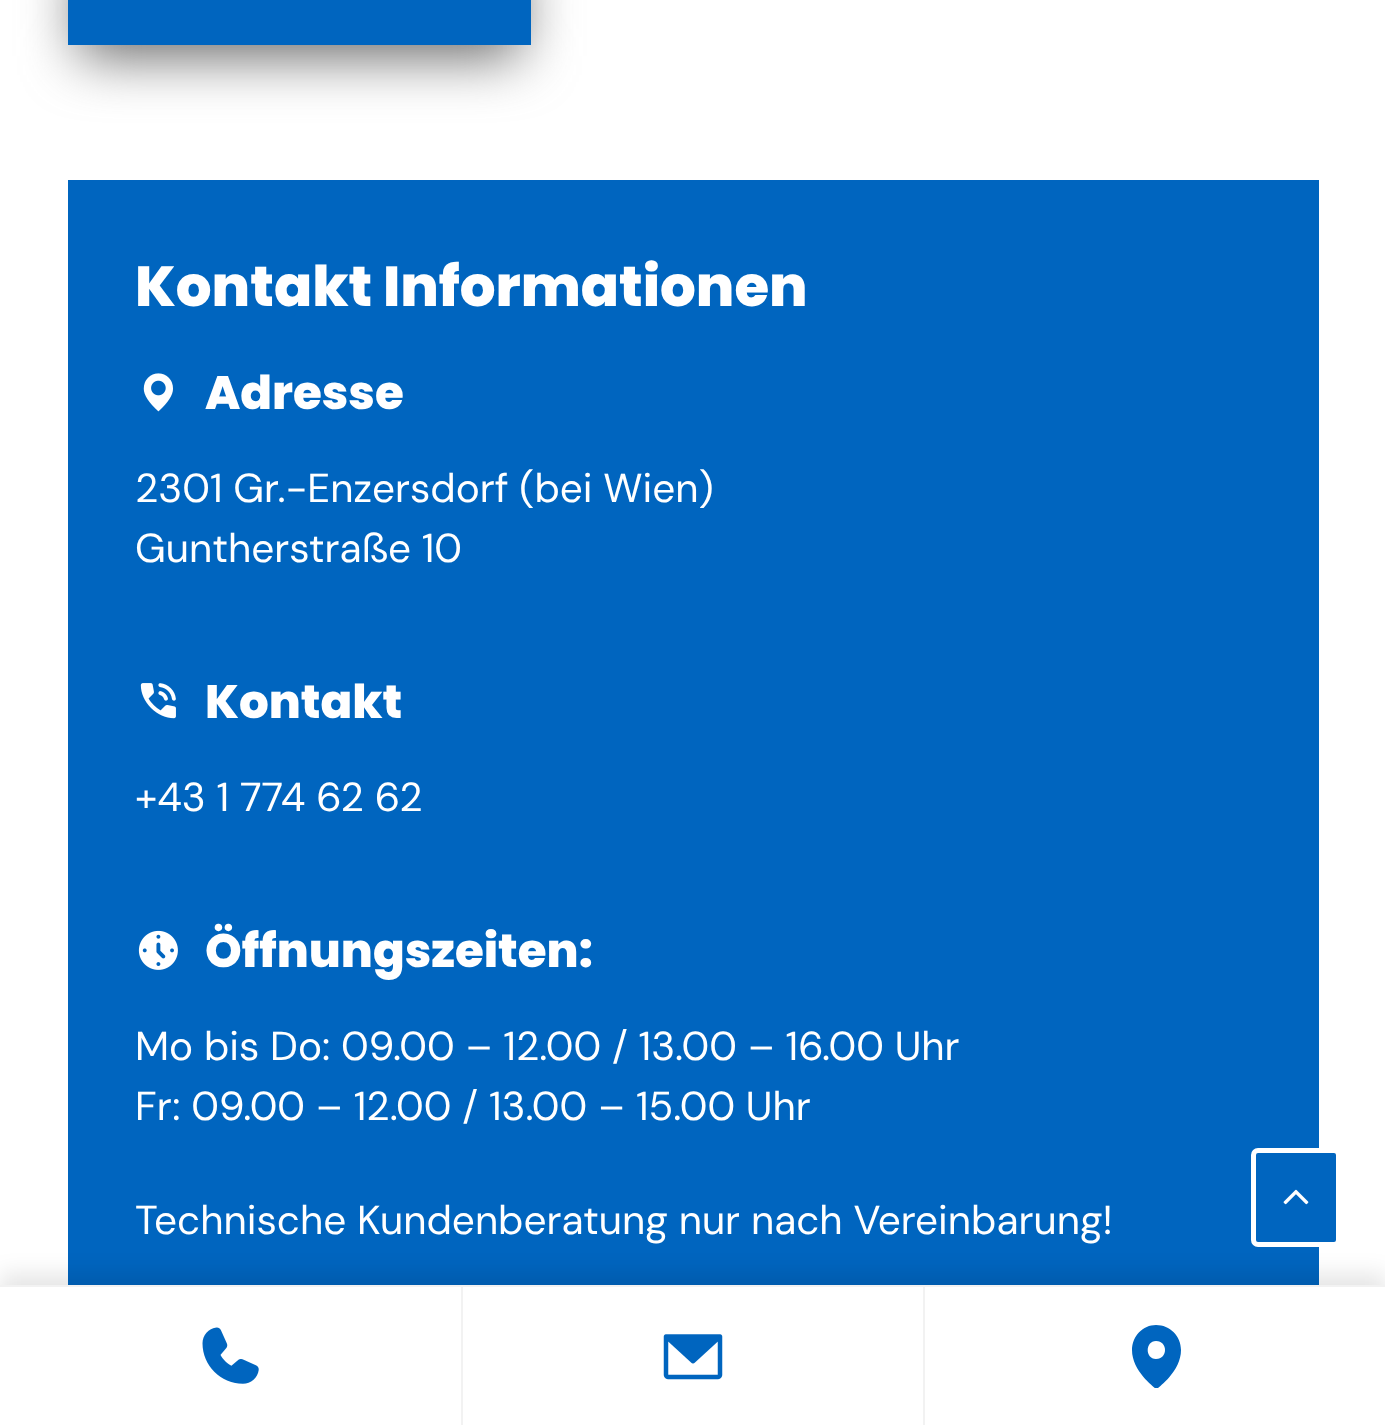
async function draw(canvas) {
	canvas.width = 1385;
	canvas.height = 1425;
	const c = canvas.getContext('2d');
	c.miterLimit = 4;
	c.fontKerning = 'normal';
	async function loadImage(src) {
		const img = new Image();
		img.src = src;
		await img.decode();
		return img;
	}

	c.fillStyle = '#fff';
	c.fillRect(0, 0, 1385, 1425);
	c.fillStyle = '#666';
	c.filter = 'blur(28px)';
	c.beginPath();
	c.rect(79, -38, 441, 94);
	c.fill();
	c.filter = 'none';
	c.fillStyle = '#0065bf';
	c.fillRect(68, 0, 463, 45);
	c.fillRect(68, 180, 1251, 1105);
	c.font = '800 56.25px Poppins';
	c.fillStyle = '#fff';
	c.fillText('Kontakt Informationen', 135, 306);
	c.drawImage(await loadImage('img1.png'), 143, 373, 30, 39);
	c.font = '800 46.75px Poppins';
	c.fillText('Adresse', 205, 409);
	c.font = '40.5px DM Sans';
	c.fillText('2301 Gr.-Enzersdorf (bei Wien)', 135, 502);
	c.fillText('Guntherstraße 10', 135, 562);
	c.drawImage(await loadImage('img2.png'), 140, 683, 36, 36);
	c.font = '800 46.75px Poppins';
	c.fillText('Kontakt', 205, 718);
	c.font = '40.5px DM Sans';
	c.fillText('+43 1 774 62 62', 135, 811);
	c.drawImage(await loadImage('img3.png'), 138, 930, 40, 40);
	c.font = '800 46.75px Poppins';
	c.fillText('Öffnungszeiten:', 205, 967);
	c.font = '40.5px DM Sans';
	for (const [text, x, y] of [
		['Mo bis Do: 09.00 – 12.00 / 13.00 – 16.00 Uhr', 135, 1060],
		['Fr: 09.00 – 12.00 / 13.00 – 15.00 Uhr', 135, 1120],
		['Technische Kundenberatung nur nach Vereinbarung!', 135, 1234],
	]) {
		c.fillText(text, x, y);
	}
	c.fillStyle = '#0065bf';
	c.beginPath();
	c.roundRect(1253.5, 1150.5, 85, 94, 4.5);
	c.fill();
	c.strokeStyle = '#fff';
	c.lineWidth = 5;
	c.stroke();
	c.drawImage(await loadImage('img4.png'), 1283, 1189, 26, 16);
	c.fillStyle = '#0000001a';
	c.filter = 'blur(11px)';
	c.beginPath();
	c.rect(0, 1274, 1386, 141);
	c.fill();
	c.filter = 'none';
	for (const [x, y, w, h, color] of [
		[0, 1287, 1385, 138, '#fff'],
		[0, 1285, 1385, 2, '#f2f2f2'],
		[461, 1287, 2, 138, '#f2f2f2'],
	]) {
		c.fillStyle = color;
		c.fillRect(x, y, w, h);
	}
	c.drawImage(await loadImage('img5.png'), 202, 1327, 57, 57);
	c.fillRect(923, 1287, 2, 138);
	c.drawImage(await loadImage('img6.png'), 663, 1334, 60, 46);
	c.fillStyle = '#0065bf';
	c.beginPath();
	c.moveTo(1156, 1325);
	c.bezierCurveTo(1143, 1325, 1132, 1336, 1132, 1350);
	c.bezierCurveTo(1132, 1371, 1154, 1387, 1155, 1388);
	c.bezierCurveTo(1156, 1388, 1157, 1388, 1158, 1388);
	c.bezierCurveTo(1159, 1387, 1181, 1371, 1181, 1350);
	c.bezierCurveTo(1181, 1336, 1170, 1325, 1156, 1325);
	c.closePath();
	c.moveTo(1156, 1341);
	c.bezierCurveTo(1168, 1341, 1168, 1359, 1156, 1359);
	c.bezierCurveTo(1145, 1359, 1145, 1341, 1156, 1341);
	c.closePath();
	c.fill();
}

draw(document.querySelector('canvas'));
